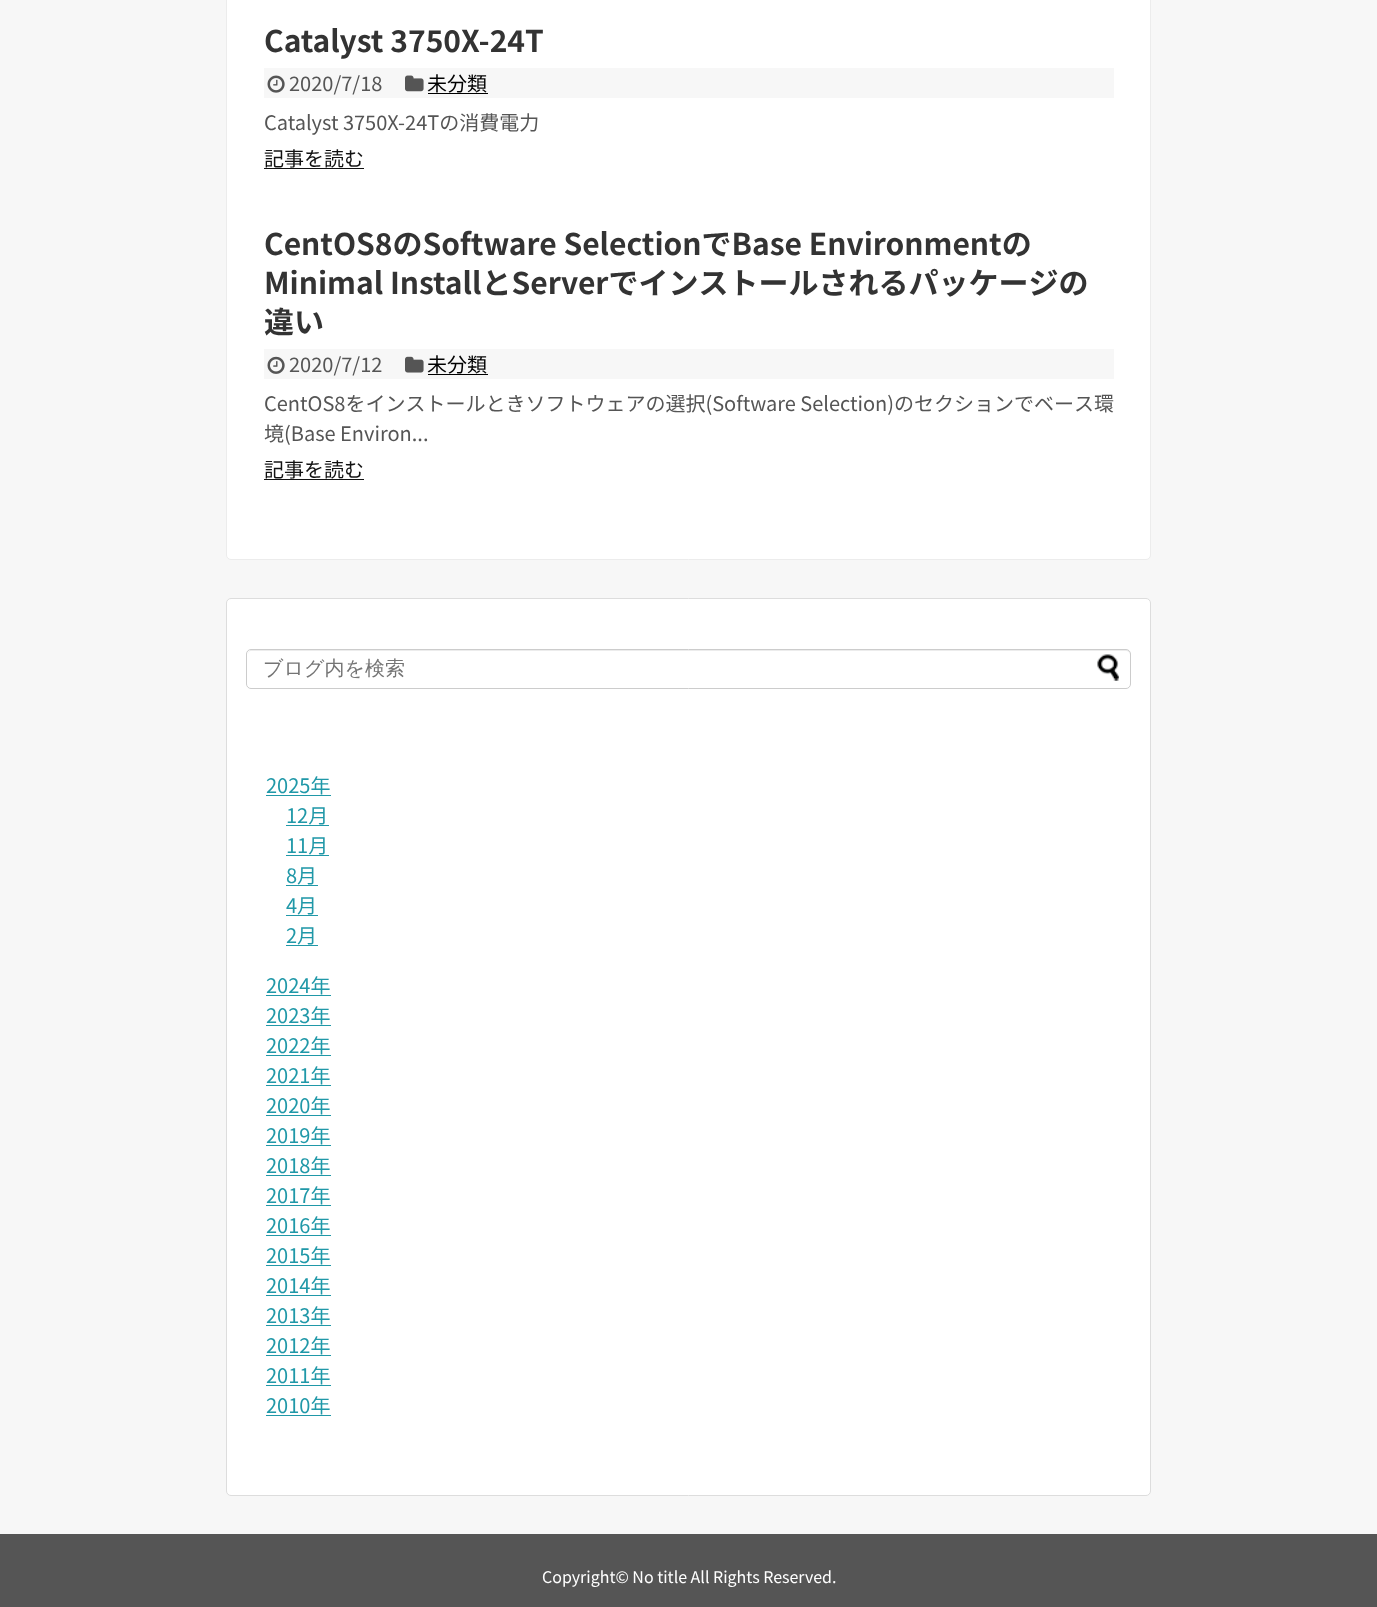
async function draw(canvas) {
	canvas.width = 1377;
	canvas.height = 1607;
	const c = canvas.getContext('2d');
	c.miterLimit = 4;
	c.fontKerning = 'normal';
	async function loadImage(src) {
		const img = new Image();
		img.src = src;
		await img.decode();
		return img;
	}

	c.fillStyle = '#f7f7f7';
	c.fillRect(0, 0, 1377, 1607);
	c.fillStyle = '#fff';
	c.beginPath();
	c.roundRect(226.5, -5.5, 924, 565, 4.5);
	c.fill();
	c.strokeStyle = '#ececec';
	c.stroke();
	c.font = 'bold 30px Noto Sans JP';
	c.fillStyle = '#333';
	c.fillText('Catalyst 3750X-24T', 264, 52);
	c.fillStyle = '#f7f7f7';
	c.fillRect(264, 68, 850, 30);
	c.drawImage(await loadImage('img1.png'), 267, 75, 18, 18);
	c.font = '20px Noto Sans JP';
	c.fillStyle = '#555';
	c.fillText('2020/7/18', 289, 91);
	c.drawImage(await loadImage('img2.png'), 405, 75, 19, 17);
	c.fillStyle = '#000';
	c.fillText('未分類', 427, 91);
	c.fillRect(428, 93, 60, 1);
	c.fillStyle = '#555';
	c.fillText('Catalyst 3750X-24Tの消費電力', 264, 130);
	c.fillStyle = '#111';
	c.fillText('記事を読む', 264, 166);
	c.fillRect(264, 168, 100, 1);
	c.font = 'bold 30px Noto Sans JP';
	c.fillStyle = '#333';
	for (const [text, x, y] of [
		['CentOS8のSoftware SelectionでBase Environmentの', 264, 255],
		['Minimal InstallとServerでインストールされるパッケージの', 264, 294],
		['違い', 264, 333],
	]) {
		c.fillText(text, x, y);
	}
	c.fillStyle = '#f7f7f7';
	c.fillRect(264, 349, 850, 30);
	c.drawImage(await loadImage('img3.png'), 267, 356, 18, 18);
	c.font = '20px Noto Sans JP';
	c.fillStyle = '#555';
	c.fillText('2020/7/12', 289, 372);
	c.drawImage(await loadImage('img4.png'), 405, 356, 19, 17);
	c.fillStyle = '#000';
	c.fillText('未分類', 427, 372);
	c.fillRect(428, 374, 60, 1);
	c.fillStyle = '#555';
	c.fillText('CentOS8をインストールときソフトウェアの選択(Software Selection)のセクションでベース環', 264, 411);
	c.fillText('境(Base Environ...', 264, 441);
	c.fillStyle = '#111';
	c.fillText('記事を読む', 264, 477);
	c.fillRect(264, 479, 100, 1);
	c.fillStyle = '#fff';
	c.beginPath();
	c.roundRect(226.5, 598.5, 924, 897, 4.5);
	c.fill();
	c.strokeStyle = '#ddd';
	c.stroke();
	c.fillStyle = '#ececec';
	c.beginPath();
	c.moveTo(251, 651);
	c.lineTo(1126, 651);
	c.bezierCurveTo(1128, 651, 1130, 653, 1130, 655);
	c.bezierCurveTo(1130, 652, 1129, 650, 1126, 650);
	c.lineTo(252, 650);
	c.bezierCurveTo(249, 650, 248, 652, 248, 655);
	c.bezierCurveTo(248, 653, 249, 651, 251, 651);
	c.closePath();
	c.fill();
	c.beginPath();
	c.roundRect(246.5, 649.5, 884, 39, 4.5);
	c.strokeStyle = '#ccc';
	c.stroke();
	c.font = '500 20px WenQuanYi Zen Hei';
	c.fillStyle = '#757575';
	c.fillText('ブログ内を検索', 263, 675);
	c.drawImage(await loadImage('img5.png'), 1097, 654, 22, 27);
	c.font = '20px Noto Sans JP';
	c.fillStyle = '#2098a8';
	c.fillText('2025年', 266, 793);
	c.fillRect(266, 795, 65, 1);
	c.fillText('12月', 286, 823);
	c.fillRect(286, 825, 43, 1);
	c.fillText('11月', 286, 853);
	c.fillRect(286, 855, 43, 1);
	c.fillText('8月', 286, 883);
	c.fillRect(286, 885, 32, 1);
	c.fillText('4月', 286, 913);
	c.fillRect(286, 915, 32, 1);
	c.fillText('2月', 286, 943);
	c.fillRect(286, 945, 32, 1);
	c.fillText('2024年', 266, 993);
	c.fillRect(266, 995, 65, 1);
	c.fillText('2023年', 266, 1023);
	c.fillRect(266, 1025, 65, 1);
	c.fillText('2022年', 266, 1053);
	c.fillRect(266, 1055, 65, 1);
	c.fillText('2021年', 266, 1083);
	c.fillRect(266, 1085, 65, 1);
	c.fillText('2020年', 266, 1113);
	c.fillRect(266, 1115, 65, 1);
	c.fillText('2019年', 266, 1143);
	c.fillRect(266, 1145, 65, 1);
	c.fillText('2018年', 266, 1173);
	c.fillRect(266, 1175, 65, 1);
	c.fillText('2017年', 266, 1203);
	c.fillRect(266, 1205, 65, 1);
	c.fillText('2016年', 266, 1233);
	c.fillRect(266, 1235, 65, 1);
	c.fillText('2015年', 266, 1263);
	c.fillRect(266, 1265, 65, 1);
	c.fillText('2014年', 266, 1293);
	c.fillRect(266, 1295, 65, 1);
	c.fillText('2013年', 266, 1323);
	c.fillRect(266, 1325, 65, 1);
	c.fillText('2012年', 266, 1353);
	c.fillRect(266, 1355, 65, 1);
	c.fillText('2011年', 266, 1383);
	c.fillRect(266, 1385, 65, 1);
	c.fillText('2010年', 266, 1413);
	c.fillRect(266, 1415, 65, 1);
	c.fillStyle = '#555';
	c.fillRect(0, 1534, 1377, 73);
	c.font = '16px Noto Sans JP';
	c.fillStyle = '#fff';
	c.fillText('Copyright© No title All Rights Reserved.', 542, 1583);
}

draw(document.querySelector('canvas'));
